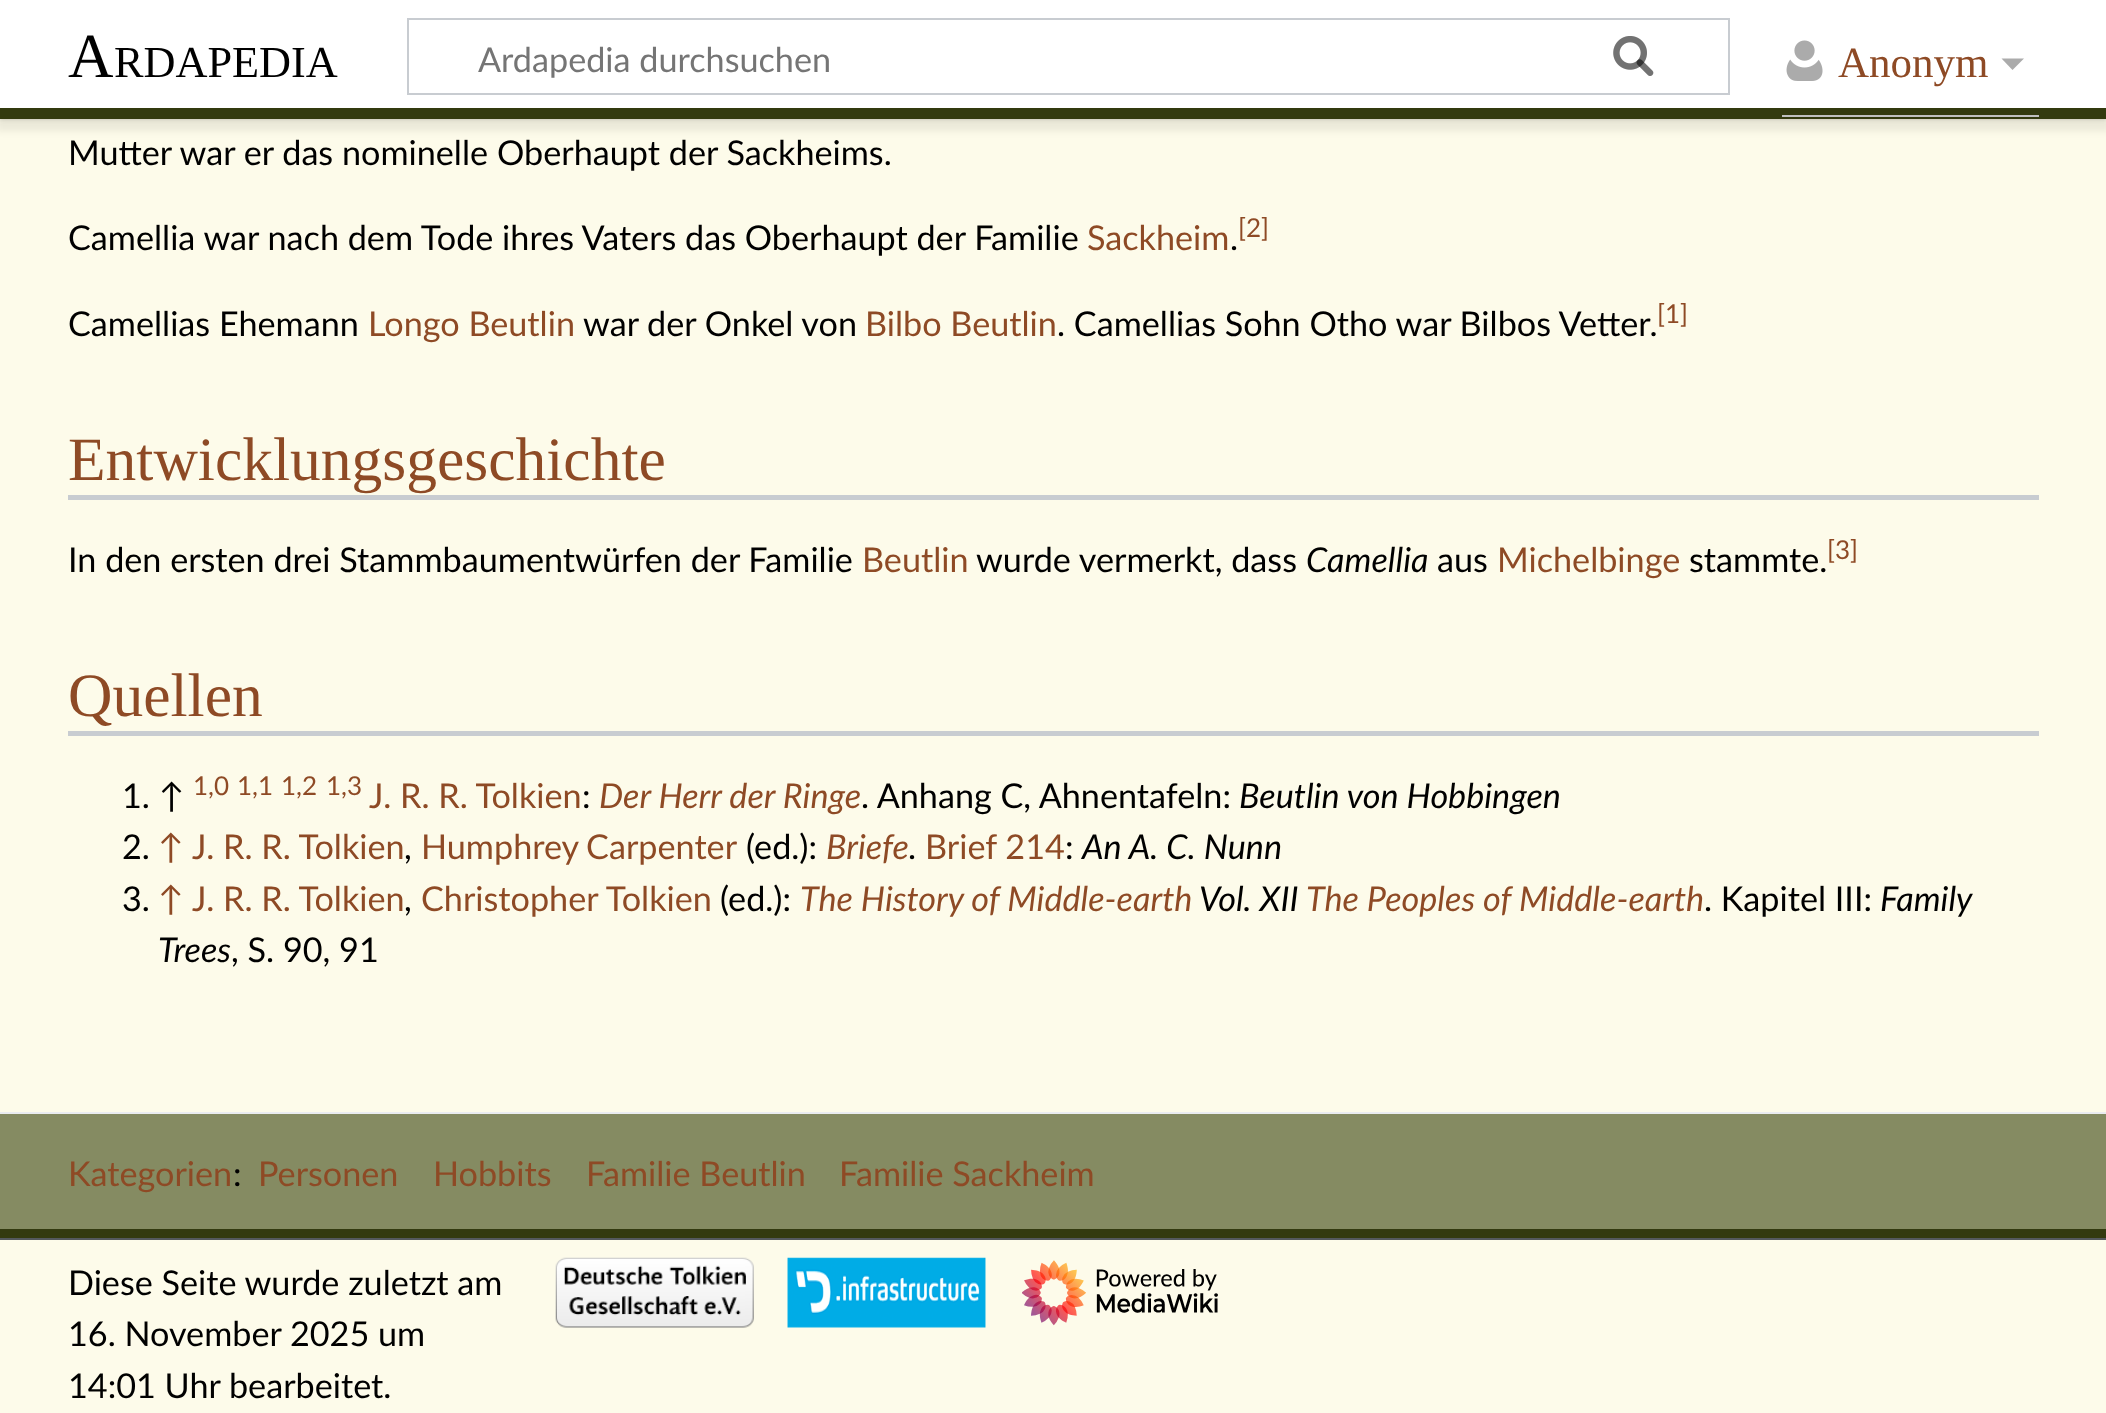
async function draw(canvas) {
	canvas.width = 2106;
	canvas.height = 1413;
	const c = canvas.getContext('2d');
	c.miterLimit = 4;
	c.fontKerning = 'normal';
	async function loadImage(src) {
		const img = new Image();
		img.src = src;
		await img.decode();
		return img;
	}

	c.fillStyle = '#fdfbea';
	c.fillRect(0, 0, 2106, 1413);
	c.fillStyle = '#00000033';
	c.filter = 'blur(2px)';
	c.beginPath();
	c.rect(0, 108, 2106, 11);
	c.fill();
	c.filter = 'none';
	c.fillStyle = '#00000012';
	c.filter = 'blur(3.5px)';
	c.beginPath();
	c.rect(-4, 110, 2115, 21);
	c.fill();
	c.filter = 'none';
	c.fillStyle = '#fff';
	c.fillRect(0, 0, 2106, 108);
	c.font = '63px Liberation Serif';
	c.fillStyle = '#000';
	c.fillText('A', 68, 77);
	c.font = '44.25px Liberation Serif';
	c.fillText('RDAPEDIA', 114, 77);
	c.strokeStyle = '#c8ccd1';
	c.lineWidth = 2;
	c.strokeRect(408, 19, 1321, 75);
	c.drawImage(await loadImage('img1.png'), 1613, 36, 41, 40);
	c.font = '34.2px Lato';
	c.fillStyle = '#757575';
	c.fillText('Ardapedia durchsuchen', 478, 72);
	c.drawImage(await loadImage('img2.png'), 1613, 36, 41, 40);
	c.drawImage(await loadImage('img3.png'), 1786, 40, 37, 41);
	c.fillStyle = '#333a0f';
	c.fillRect(0, 108, 2106, 11);
	c.fillStyle = '#c0c0c0';
	c.fillRect(1782, 115, 257, 2);
	c.font = '43px Liberation Serif';
	c.fillStyle = '#8e4a25';
	c.fillText('Anonym', 1838, 77);
	c.fillStyle = '#ababab';
	c.beginPath();
	c.moveTo(2024, 58.5);
	c.lineTo(2012.5, 70);
	c.lineTo(2001.5, 58.5);
	c.closePath();
	c.fill();
	for (const [x, y, w, h, color] of [
		[0, 1114, 2106, 115, '#858b62'],
		[0, 1229, 2106, 9, '#333a0f'],
		[0, 1112, 2106, 2, '#eaecf0'],
	]) {
		c.fillStyle = color;
		c.fillRect(x, y, w, h);
	}
	c.font = '34.2px Lato';
	c.fillStyle = '#000';
	for (const [text, x, y] of [
		['Mutter war er das nominelle', 68, 165],
		['Oberhaupt der Sackheims.', 497, 165],
		['Camellia war nach dem Tode ihres Vaters das Oberhaupt der Familie', 68, 250],
	]) {
		c.fillText(text, x, y);
	}
	c.fillStyle = '#8e4a25';
	c.fillText('Sackheim', 1087, 250);
	c.fillStyle = '#000';
	c.fillText('.', 1230, 250);
	c.font = '26px Lato';
	c.fillStyle = '#8e4a25';
	c.fillText('[2]', 1238, 237);
	c.font = '34.2px Lato';
	c.fillStyle = '#000';
	c.fillText('Camellias Ehemann', 68, 336);
	c.fillStyle = '#8e4a25';
	c.fillText('Longo Beutlin', 368, 336);
	c.fillStyle = '#000';
	c.fillText('war der Onkel von', 583, 336);
	c.fillStyle = '#8e4a25';
	c.fillText('Bilbo Beutlin', 865, 336);
	c.fillStyle = '#000';
	c.fillText('. Camellias Sohn Otho war Bilbos Vetter.', 1057, 336);
	c.font = '26px Lato';
	c.fillStyle = '#8e4a25';
	c.fillText('[1]', 1657, 323);
	c.fillStyle = '#c8ccd1';
	c.fillRect(68, 495, 1971, 5);
	c.font = '61.5px Liberation Serif';
	c.fillStyle = '#8e4a25';
	c.fillText('Entwicklungsgeschichte', 68, 480);
	c.font = '34.2px Lato';
	c.fillStyle = '#000';
	c.fillText('In den ersten drei Stammbaumentwürfen der Familie', 68, 572);
	c.fillStyle = '#8e4a25';
	c.fillText('Beutlin', 862, 572);
	c.fillStyle = '#000';
	c.fillText('wurde vermerkt, dass', 976, 572);
	c.font = 'italic 34.2px Lato';
	c.fillText('Camellia', 1306, 572);
	c.font = '34.2px Lato';
	c.fillText('aus', 1437, 572);
	c.fillStyle = '#8e4a25';
	c.fillText('Michelbinge', 1497, 572);
	c.fillStyle = '#000';
	c.fillText('stammte.', 1689, 572);
	c.font = '26px Lato';
	c.fillStyle = '#8e4a25';
	c.fillText('[3]', 1827, 559);
	c.fillStyle = '#c8ccd1';
	c.fillRect(68, 731, 1971, 5);
	c.font = '61.5px Liberation Serif';
	c.fillStyle = '#8e4a25';
	c.fillText('Quellen', 68, 716);
	c.font = '34.2px Lato';
	c.fillStyle = '#000';
	c.fillText('1. ↑', 122, 808);
	c.font = '26px Lato';
	c.fillStyle = '#8e4a25';
	for (const [text, x, y] of [
		['1,0', 193, 795],
		['1,1', 237, 795],
		['1,2', 281, 795],
		['1,3', 326, 795],
	]) {
		c.fillText(text, x, y);
	}
	c.font = '34.2px Lato';
	c.fillText('J. R. R. Tolkien', 369, 808);
	c.fillStyle = '#000';
	c.fillText(':', 582, 808);
	c.font = 'italic 34.2px Lato';
	c.fillStyle = '#8e4a25';
	c.fillText('Der Herr der Ringe', 599, 808);
	c.font = '34.2px Lato';
	c.fillStyle = '#000';
	c.fillText('. Anhang C, Ahnentafeln:', 861, 808);
	c.font = 'italic 34.2px Lato';
	c.fillText('Beutlin von Hobbingen', 1239, 808);
	c.font = '34.2px Lato';
	c.fillText('2.', 122, 859);
	c.fillStyle = '#8e4a25';
	c.fillText('↑', 158, 859);
	c.fillText('J. R. R. Tolkien', 192, 859);
	c.fillStyle = '#000';
	c.fillText(',', 404, 859);
	c.wordSpacing = '-1px';
	c.fillStyle = '#8e4a25';
	c.fillText('Humphrey Carpenter', 421, 859);
	c.wordSpacing = '0px';
	c.fillStyle = '#000';
	c.fillText('(ed.):', 746, 859);
	c.font = 'italic 34.2px Lato';
	c.fillStyle = '#8e4a25';
	c.fillText('Briefe', 826, 859);
	c.font = '34.2px Lato';
	c.fillStyle = '#000';
	c.fillText('.', 908, 859);
	c.fillStyle = '#8e4a25';
	c.fillText('Brief 214', 925, 859);
	c.fillStyle = '#000';
	c.fillText(':', 1065, 859);
	c.font = 'italic 34.2px Lato';
	c.fillText('An A. C. Nunn', 1082, 859);
	c.font = '34.2px Lato';
	c.fillText('3.', 122, 911);
	c.fillStyle = '#8e4a25';
	c.fillText('↑', 158, 911);
	c.fillText('J. R. R. Tolkien', 192, 911);
	c.fillStyle = '#000';
	c.fillText(',', 404, 911);
	c.fillStyle = '#8e4a25';
	c.fillText('Christopher Tolkien', 421, 911);
	c.fillStyle = '#000';
	c.fillText('(ed.):', 720, 911);
	c.font = 'italic 34.2px Lato';
	c.fillStyle = '#8e4a25';
	c.fillText('The History of Middle-earth', 800, 911);
	c.fillStyle = '#000';
	c.fillText('Vol. XII', 1199, 911);
	c.fillStyle = '#8e4a25';
	c.fillText('The Peoples of Middle-earth', 1306, 911);
	c.font = '34.2px Lato';
	c.fillStyle = '#000';
	c.fillText('. Kapitel III:', 1704, 911);
	c.font = 'italic 34.2px Lato';
	c.fillText('Family', 1880, 911);
	c.fillText('Trees', 158, 962);
	c.font = '34.2px Lato';
	c.fillText(', S. 90, 91', 231, 962);
	c.fillStyle = '#8e4a25';
	c.fillText('Kategorien', 68, 1186);
	c.fillStyle = '#000';
	c.fillText(':', 233, 1186);
	c.fillStyle = '#8e4a25';
	for (const [text, x, y] of [
		['Personen', 258, 1186],
		['Hobbits', 433, 1186],
		['Familie Beutlin', 586, 1186],
		['Familie Sackheim', 839, 1186],
	]) {
		c.fillText(text, x, y);
	}
	c.fillStyle = '#54595d';
	c.fillRect(0, 1238, 2106, 2);
	c.fillStyle = '#000';
	for (const [text, x, y] of [
		['Diese Seite wurde zuletzt am', 68, 1295],
		['16. November 2025 um', 68, 1346],
		['14:01 Uhr bearbeitet.', 68, 1398],
	]) {
		c.fillText(text, x, y);
	}
	c.drawImage(await loadImage('img4.png'), 555, 1257, 199, 71);
	c.drawImage(await loadImage('img5.png'), 787, 1257, 199, 71);
	c.drawImage(await loadImage('img6.png'), 1022, 1260, 196, 66);
}

draw(document.querySelector('canvas'));
